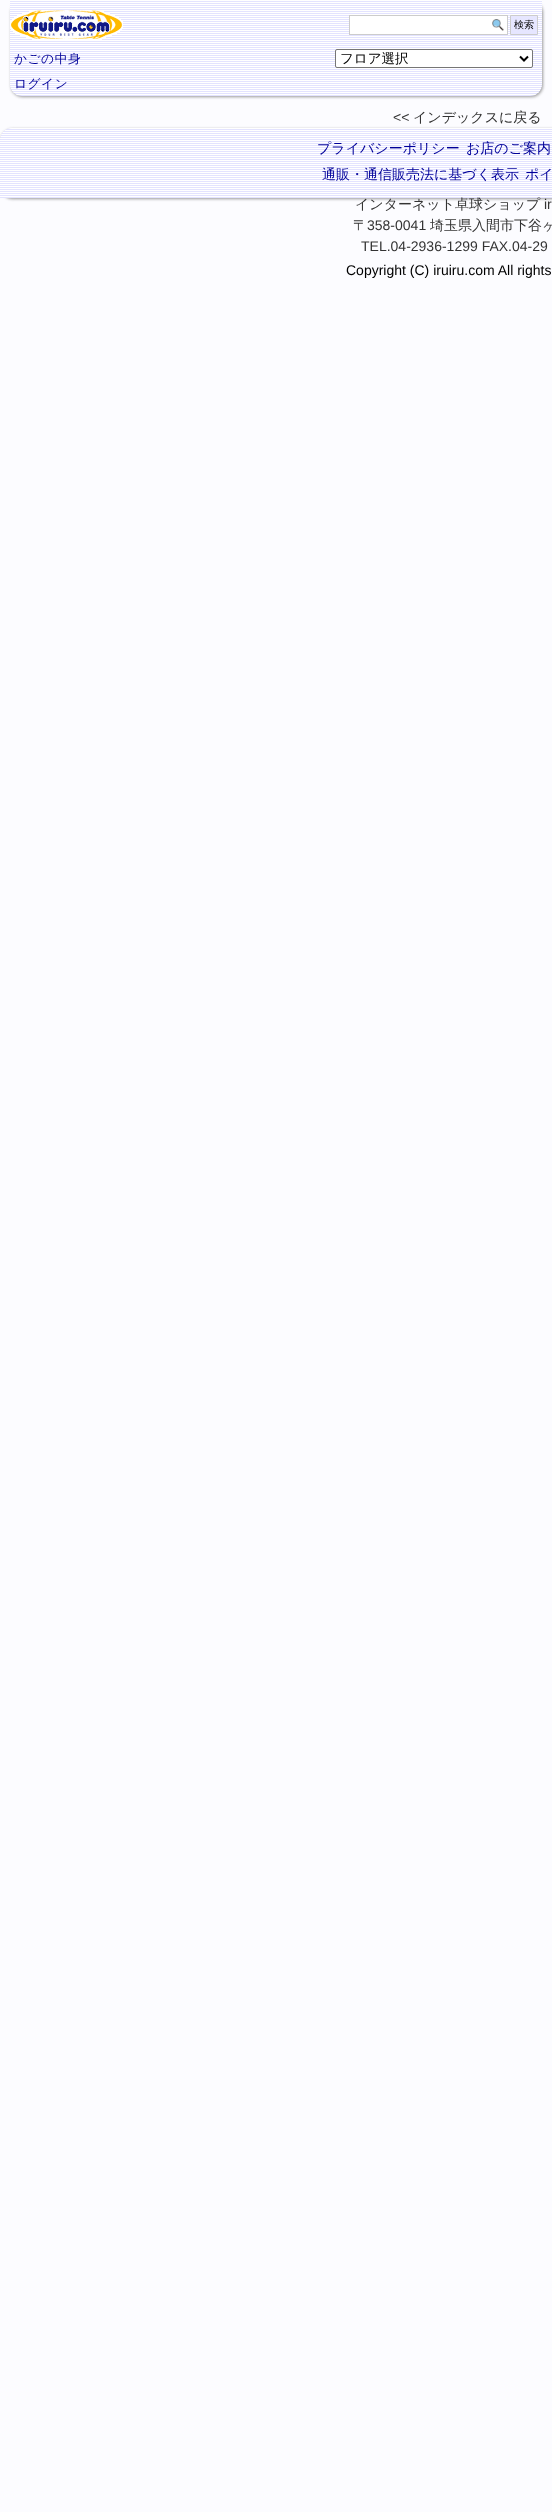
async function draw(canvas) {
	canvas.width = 552;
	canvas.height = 2512;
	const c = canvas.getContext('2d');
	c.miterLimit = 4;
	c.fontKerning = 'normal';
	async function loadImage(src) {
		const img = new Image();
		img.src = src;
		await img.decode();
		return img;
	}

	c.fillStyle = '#fcfcff';
	c.fillRect(0, 0, 552, 2512);
	c.fillStyle = '#999';
	c.filter = 'blur(1.5px)';
	c.beginPath();
	c.roundRect(11, 1, 532, 96, 12);
	c.fill();
	c.filter = 'none';
	c.fillStyle = '#e3e3ff';
	c.beginPath();
	c.roundRect(10, 0, 532, 96, [0, 0, 12, 12]);
	c.fill();
	c.drawImage(await loadImage('img1.png'), 10, 0, 532, 95);
	c.drawImage(await loadImage('img2.png'), 10, 10, 113, 30);
	c.fillStyle = '#fff';
	c.fillRect(350, 17, 157, 17);
	c.drawImage(await loadImage('img3.png'), 492, 19, 12, 12);
	c.strokeStyle = '#ccc';
	c.strokeRect(349.5, 15.5, 158, 19);
	c.fillStyle = '#e6e6ff';
	c.beginPath();
	c.rect(510.5, 15.5, 27, 19);
	c.fill();
	c.stroke();
	c.font = '500 10px WenQuanYi Zen Hei';
	c.fillStyle = '#000';
	c.fillText('検索', 514, 28);
	c.letterSpacing = '0.5px';
	c.font = '500 12.75px WenQuanYi Zen Hei';
	c.fillStyle = '#009';
	c.fillText('かごの中身', 14, 63);
	c.fillStyle = '#fff';
	c.beginPath();
	c.roundRect(335.5, 49.5, 197, 18, 1.5);
	c.fill();
	c.strokeStyle = '#767676';
	c.stroke();
	c.beginPath();
	c.moveTo(520, 56.5);
	c.lineTo(524, 60.5);
	c.lineTo(528, 56.5);
	c.strokeStyle = '#000';
	c.lineWidth = 2;
	c.stroke();
	c.letterSpacing = '0px';
	c.font = '500 13.5px WenQuanYi Zen Hei';
	c.fillStyle = '#000';
	c.fillText('フロア選択', 340, 63);
	c.letterSpacing = '0.5px';
	c.font = '500 12.75px WenQuanYi Zen Hei';
	c.fillStyle = '#009';
	c.fillText('ログイン', 14, 88);
	c.letterSpacing = '0px';
	c.font = '14px Liberation Sans';
	c.fillStyle = '#333';
	c.fillText('<<', 393, 122);
	c.fillStyle = '#999';
	c.filter = 'blur(1.5px)';
	c.beginPath();
	c.roundRect(1, 129, 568, 70, 12);
	c.fill();
	c.filter = 'none';
	c.font = '500 14px WenQuanYi Zen Hei';
	c.fillStyle = '#333';
	c.fillText('インデックスに戻る', 413, 122);
	c.fillStyle = '#e3e3ff';
	c.beginPath();
	c.moveTo(12, 128);
	c.lineTo(552, 128);
	c.bezierCurveTo(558.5, 128, 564, 133.5, 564, 140);
	c.lineTo(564, 198);
	c.lineTo(0, 198);
	c.lineTo(0, 140);
	c.bezierCurveTo(0, 133.5, 5.5, 128, 12, 128);
	c.closePath();
	c.fill();
	c.drawImage(await loadImage('img4.png'), 0, 128, 552, 69);
	c.fillStyle = '#009';
	for (const [text, x, y] of [
		['プライバシーポリシー', 317, 153],
		['お店のご案内', 466, 153],
		['通販・通信販売法に基づく表示', 322, 179],
		['ポイ', 525, 179],
	]) {
		c.fillText(text, x, y);
	}
	c.fillStyle = '#333';
	c.fillText('インターネット卓球ショップ', 355, 209);
	c.font = '14px Liberation Sans';
	c.fillText('ir', 544, 209);
	c.font = '500 14px WenQuanYi Zen Hei';
	c.fillText('〒', 353, 230);
	c.font = '14px Liberation Sans';
	c.fillText('358-0041', 367, 230);
	c.font = '500 14px WenQuanYi Zen Hei';
	c.fillText('埼玉県入間市下谷ヶ', 430, 230);
	c.font = '14px Liberation Sans';
	c.fillText('TEL.04-2936-1299 FAX.04-29', 361, 251);
	c.fillStyle = '#000';
	c.fillText('Copyright (C) iruiru.com All rights', 346, 275);
}

draw(document.querySelector('canvas'));
